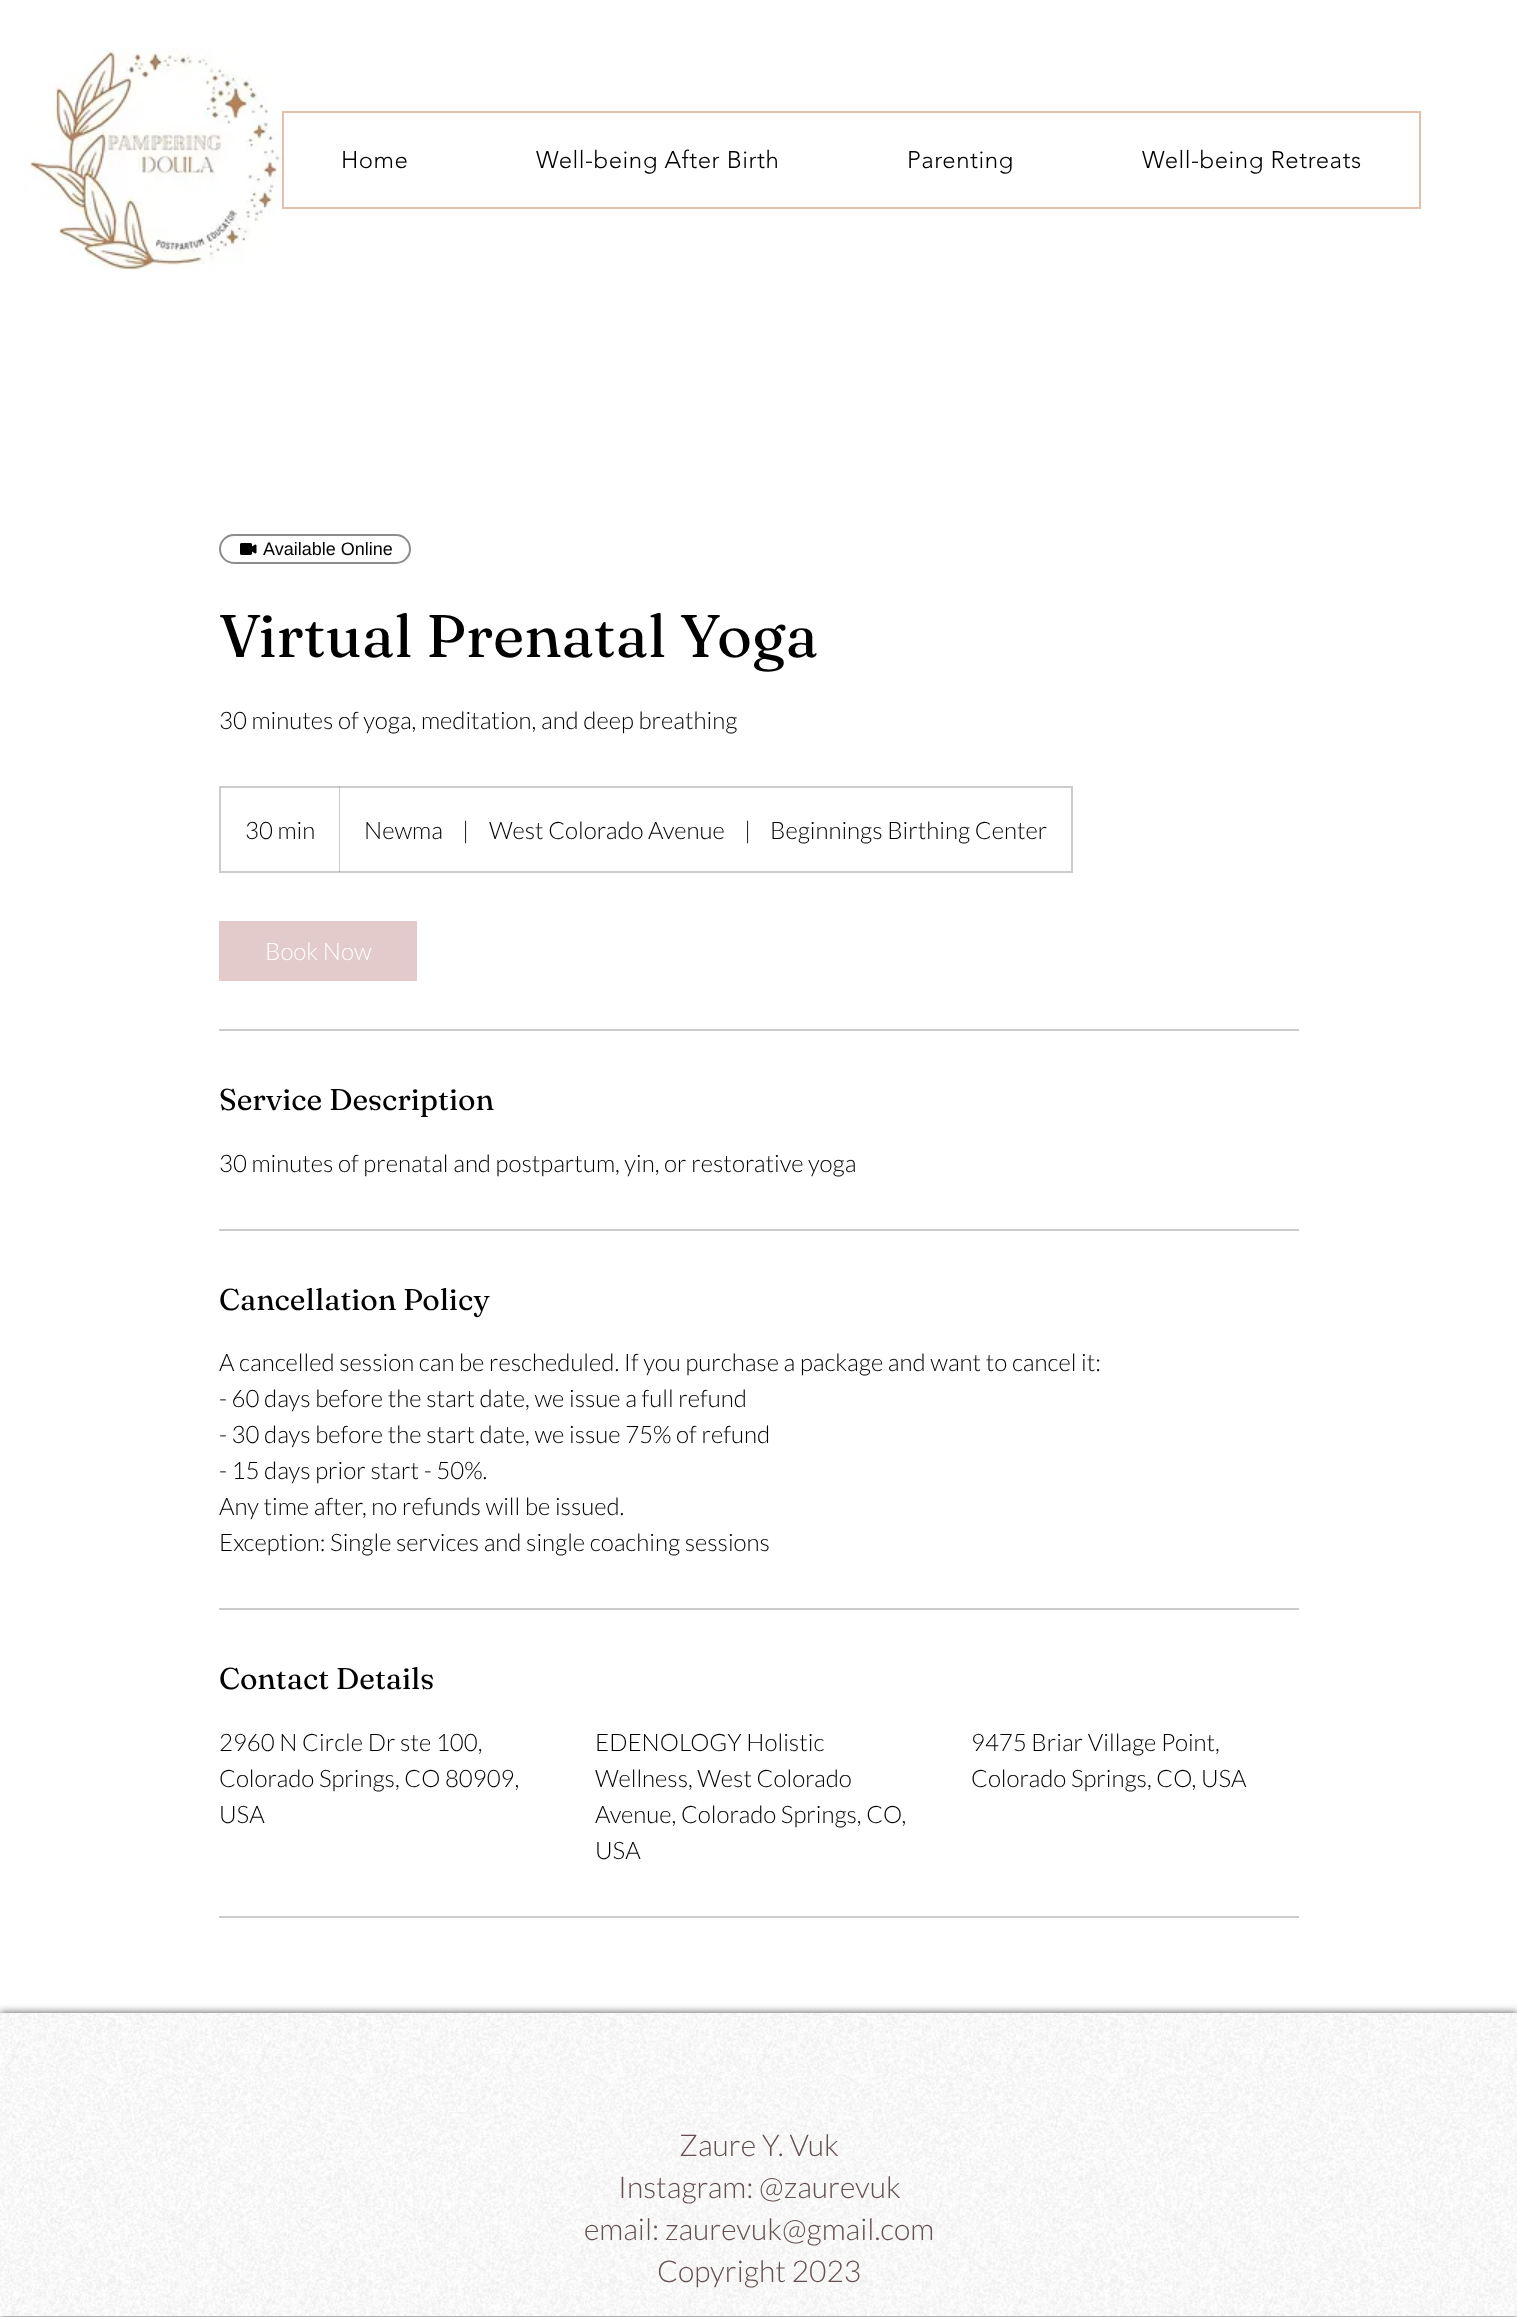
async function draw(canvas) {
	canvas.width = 1517;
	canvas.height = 2317;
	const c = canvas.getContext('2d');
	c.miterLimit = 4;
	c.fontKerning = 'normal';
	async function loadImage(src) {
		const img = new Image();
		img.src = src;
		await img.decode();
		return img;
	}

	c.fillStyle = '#fff';
	c.fillRect(0, 0, 1517, 2317);
	c.drawImage(await loadImage('img1.png'), 24, 48, 258, 223);
	c.strokeStyle = '#e4bfad';
	c.lineWidth = 2;
	c.strokeRect(283, 112, 1137, 96);
	c.letterSpacing = '0.5px';
	c.font = '300 24px "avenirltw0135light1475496"';
	c.fillStyle = '#000';
	for (const [text, x, y] of [
		['Home', 341, 168],
		['Well-being After Birth', 536, 168],
		['Parenting', 907, 168],
		['Well-being Retreats', 1142, 168],
	]) {
		c.fillText(text, x, y);
	}
	c.beginPath();
	c.roundRect(220, 535, 190, 28, 14);
	c.strokeStyle = '#8c8c8c';
	c.stroke();
	c.drawImage(await loadImage('img2.png'), 240, 543, 17, 12);
	c.letterSpacing = '0px';
	c.font = '18px Liberation Sans';
	c.fillText('Available Online', 263, 555);
	c.font = '60px Fraunces';
	c.fillText('Virtual Prenatal Yoga', 219, 657);
	c.font = '300 24px Lato';
	c.fillText('30 minutes of yoga, meditation, and deep breathing', 219, 729);
	c.strokeStyle = '#ccc';
	c.strokeRect(220, 787, 852, 85);
	c.fillText('30 min', 245, 839);
	c.fillStyle = '#00000033';
	c.beginPath();
	c.moveTo(339, 872);
	c.lineTo(339, 786);
	c.lineTo(340, 788);
	c.lineTo(340, 872);
	c.closePath();
	c.fill();
	c.fillStyle = '#000';
	for (const [text, x, y] of [
		['Newma', 364, 839],
		['|', 462, 839],
		['West Colorado Avenue', 489, 839],
		['|', 744, 839],
		['Beginnings Birthing Center', 770, 839],
	]) {
		c.fillText(text, x, y);
	}
	c.fillStyle = '#e2cbca';
	c.fillRect(219, 921, 198, 60);
	c.fillStyle = '#fff';
	c.fillText('Book Now', 265, 960);
	c.fillStyle = '#ccc';
	c.fillRect(219, 1029, 1080, 2);
	c.font = '30px Fraunces';
	c.fillStyle = '#000';
	c.fillText('Service Description', 219, 1110);
	c.font = '300 24px Lato';
	c.fillText('30 minutes of prenatal and postpartum, yin, or restorative yoga', 219, 1172);
	c.fillStyle = '#ccc';
	c.fillRect(219, 1229, 1080, 2);
	c.font = '30px Fraunces';
	c.fillStyle = '#000';
	c.fillText('Cancellation Policy', 219, 1310);
	c.font = '300 24px Lato';
	for (const [text, x, y] of [
		['A cancelled session can be rescheduled. If you purchase a package and want to cancel it:', 219, 1371],
		['- 60 days before the start date, we issue a full refund', 219, 1407],
		['- 30 days before the start date, we issue 75% of refund', 219, 1443],
		['- 15 days prior start - 50%.', 219, 1479],
		['Any time after, no refunds will be issued.', 219, 1515],
		['Exception: Single services and single coaching sessions', 219, 1551],
	]) {
		c.fillText(text, x, y);
	}
	c.fillStyle = '#ccc';
	c.fillRect(219, 1608, 1080, 2);
	c.font = '30px Fraunces';
	c.fillStyle = '#000';
	c.fillText('Contact Details', 219, 1689);
	c.font = '300 24px Lato';
	for (const [text, x, y] of [
		['2960 N Circle Dr ste 100,', 219, 1751],
		['Colorado Springs, CO 80909,', 219, 1787],
		['USA', 219, 1823],
		['EDENOLOGY Holistic', 595, 1751],
		['Wellness, West Colorado', 595, 1787],
		['Avenue, Colorado Springs, CO,', 595, 1823],
		['USA', 595, 1859],
		['9475 Briar Village Point,', 971, 1751],
		['Colorado Springs, CO, USA', 971, 1787],
	]) {
		c.fillText(text, x, y);
	}
	c.fillStyle = '#ccc';
	c.fillRect(219, 1916, 1080, 2);
	c.save();
	c.beginPath();
	c.moveTo(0, 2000);
	c.lineTo(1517, 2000);
	c.lineTo(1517, 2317);
	c.lineTo(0, 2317);
	c.closePath();
	c.moveTo(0, 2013);
	c.lineTo(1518, 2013);
	c.lineTo(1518, 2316);
	c.lineTo(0, 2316);
	c.closePath();
	c.clip('evenodd');
	c.fillStyle = '#000000b3';
	c.filter = 'blur(4px)';
	c.beginPath();
	c.rect(0, 2013, 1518, 303);
	c.fill();
	c.filter = 'none';
	c.restore();
	c.drawImage(await loadImage('img3.png'), 0, 2013, 1517, 303);
	c.font = '300 30px Lato';
	c.fillStyle = '#64504e';
	for (const [text, x, y] of [
		['Zaure Y. Vuk', 679, 2156],
		['Instagram: @zaurevuk', 618, 2198],
		['email: zaurevuk@gmail.com', 584, 2240],
		['Copyright 2023', 657, 2282],
	]) {
		c.fillText(text, x, y);
	}
}

draw(document.querySelector('canvas'));
